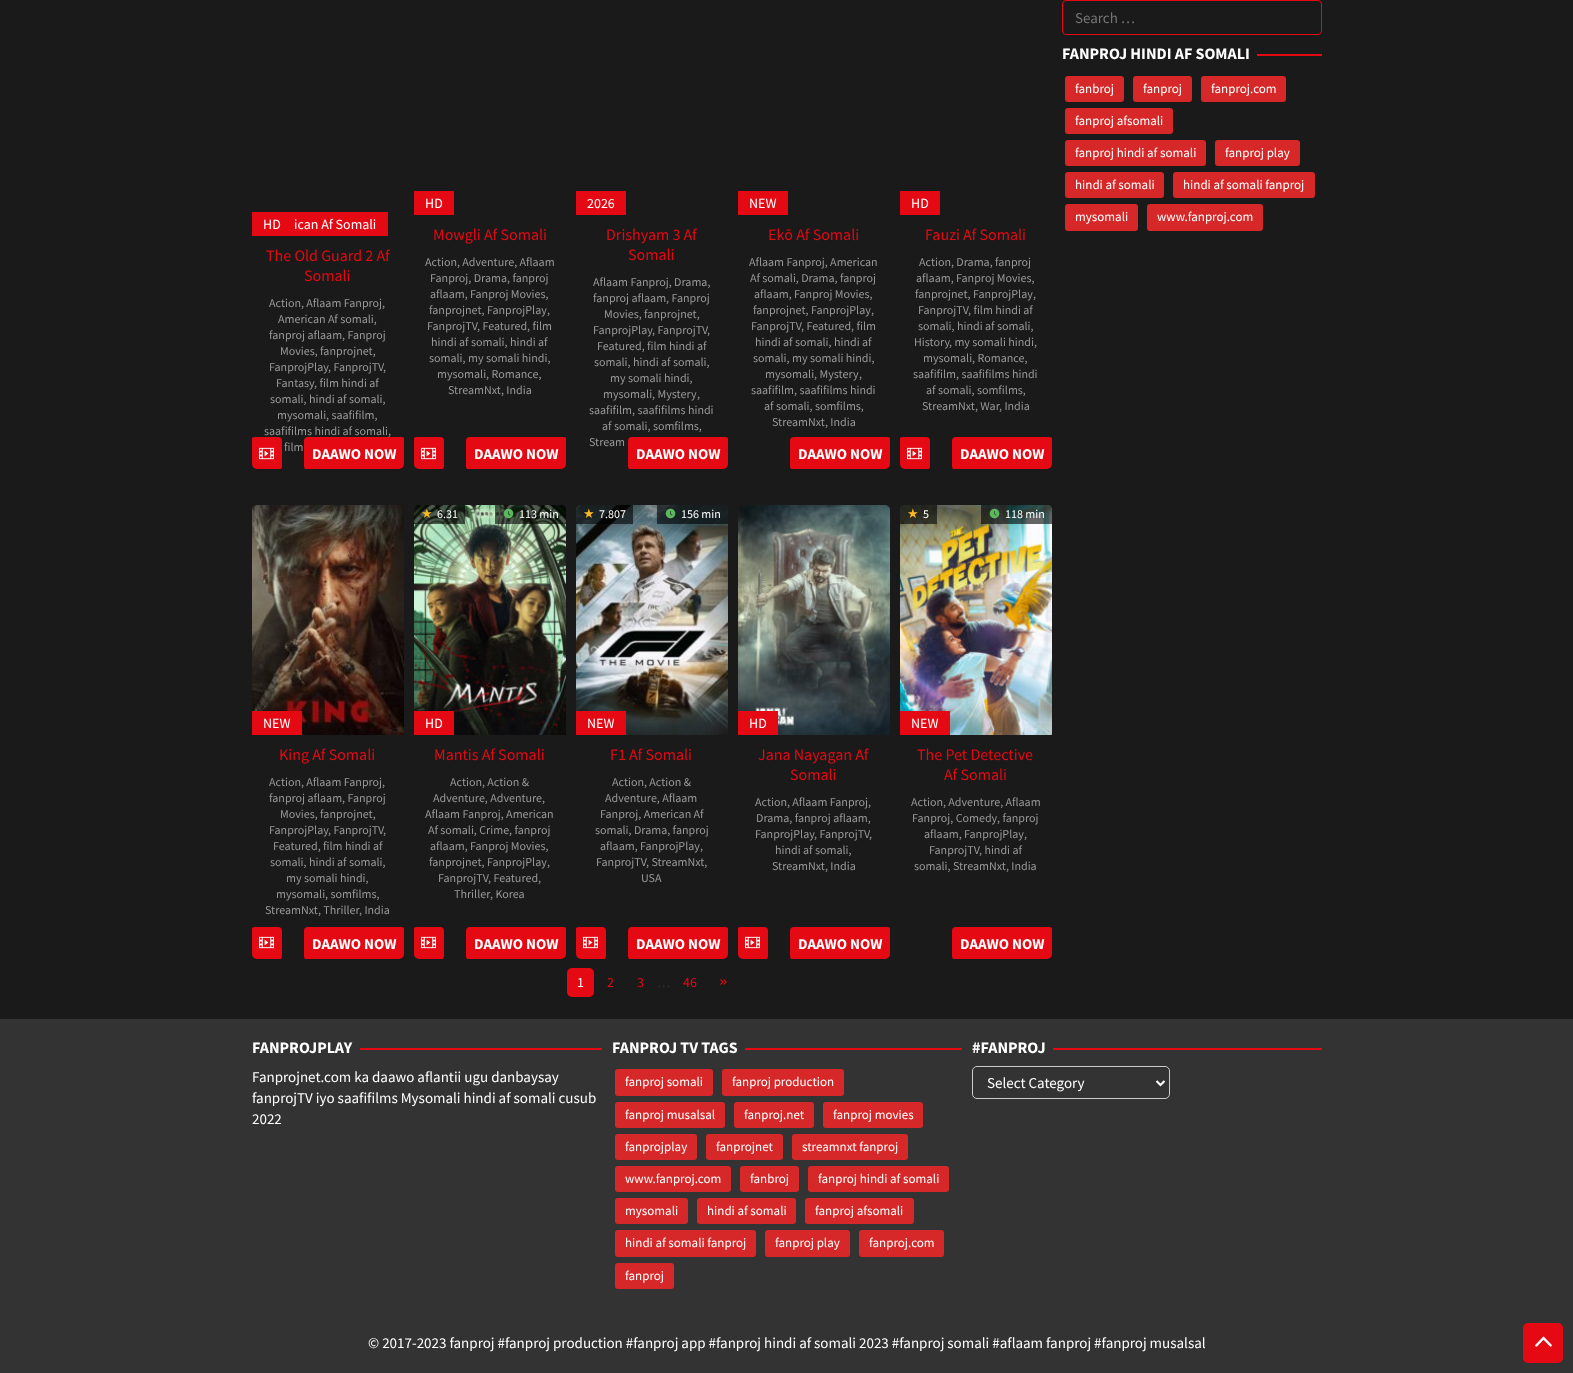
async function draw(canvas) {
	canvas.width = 1573;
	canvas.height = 1373;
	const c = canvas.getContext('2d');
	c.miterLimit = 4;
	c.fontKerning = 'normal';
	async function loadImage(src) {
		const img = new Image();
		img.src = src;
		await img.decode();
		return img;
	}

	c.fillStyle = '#1a1a1a';
	c.fillRect(0, 0, 1573, 1373);
	c.beginPath();
	c.roundRect(1062.5, 0.5, 259, 34, 3.5);
	c.strokeStyle = '#e50914';
	c.stroke();
	c.font = '15px Source Sans Pro';
	c.fillStyle = '#757575';
	c.fillText('Search …', 1075, 23);
	c.font = 'bold 16px Source Sans Pro';
	c.fillStyle = '#fff';
	c.fillText('FANPROJ HINDI AF SOMALI', 1062, 59);
	c.fillStyle = '#e50914';
	c.fillRect(1257, 54, 65, 2);
	c.fillStyle = '#d62828';
	c.beginPath();
	c.roundRect(1065, 76, 59, 26, 3);
	c.fill();
	c.font = '13px Source Sans Pro';
	c.fillStyle = '#fff';
	c.fillText('fanbroj', 1075, 93);
	c.fillStyle = '#d62828';
	c.beginPath();
	c.roundRect(1133, 76, 59, 26, 3);
	c.fill();
	c.fillStyle = '#fff';
	c.fillText('fanproj', 1143, 93);
	c.fillStyle = '#d62828';
	c.beginPath();
	c.roundRect(1201, 76, 85, 26, 3);
	c.fill();
	c.fillStyle = '#fff';
	c.fillText('fanproj.com', 1211, 93);
	c.fillStyle = '#d62828';
	c.beginPath();
	c.roundRect(1065, 108, 108, 26, 3);
	c.fill();
	c.fillStyle = '#fff';
	c.fillText('fanproj afsomali', 1075, 125);
	c.fillStyle = '#d62828';
	c.beginPath();
	c.roundRect(1065, 140, 141, 26, 3);
	c.fill();
	c.fillStyle = '#fff';
	c.fillText('fanproj hindi af somali', 1075, 157);
	c.fillStyle = '#d62828';
	c.beginPath();
	c.roundRect(1215, 140, 85, 26, 3);
	c.fill();
	c.fillStyle = '#fff';
	c.fillText('fanproj play', 1225, 157);
	c.fillStyle = '#d62828';
	c.beginPath();
	c.roundRect(1065, 172, 99, 26, 3);
	c.fill();
	c.fillStyle = '#fff';
	c.fillText('hindi af somali', 1075, 189);
	c.fillStyle = '#d62828';
	c.beginPath();
	c.roundRect(1173, 172, 142, 26, 3);
	c.fill();
	c.fillStyle = '#fff';
	c.fillText('hindi af somali fanproj', 1183, 189);
	c.fillStyle = '#d62828';
	c.beginPath();
	c.roundRect(1065, 204, 73, 27, 3);
	c.fill();
	c.fillStyle = '#fff';
	c.fillText('mysomali', 1075, 221);
	c.fillStyle = '#d62828';
	c.beginPath();
	c.roundRect(1147, 204, 116, 27, 3);
	c.fill();
	c.fillStyle = '#fff';
	c.fillText('www.fanproj.com', 1157, 221);
	c.fillStyle = '#e50914';
	c.fillRect(252, 212, 136, 24);
	c.font = '14px Source Sans Pro';
	c.fillStyle = '#fff';
	c.fillText('HD', 263, 229);
	c.fillText('ican Af Somali', 294, 229);
	c.font = '16px Source Sans Pro';
	c.fillStyle = '#e50914';
	c.fillText('The Old Guard 2 Af', 266, 261);
	c.fillText('Somali', 304, 281);
	c.font = '12px Source Sans Pro';
	c.fillStyle = '#999';
	for (const [text, x, y] of [
		['Action, Aflaam Fanproj,', 269, 307],
		['American Af somali,', 278, 323],
		['fanproj aflaam, Fanproj', 269, 339],
		['Movies, fanprojnet,', 280, 355],
		['FanprojPlay', 269, 371],
		[', FanprojTV', 328, 371],
		[',', 383, 371],
		['Fantasy', 276, 387],
		[', film hindi af', 314, 387],
		['somali, hindi af somali,', 270, 403],
		['mysomali, saafifilm,', 277, 419],
		['saafifilms hindi af somali,', 264, 435],
		['film', 284, 451],
	]) {
		c.fillText(text, x, y);
	}
	c.save();
	c.beginPath();
	c.roundRect(252, -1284, 152, 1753, 5);
	c.clip();
	c.fillStyle = '#e50914';
	c.beginPath();
	c.roundRect(251, 437, 31, 33, 4);
	c.fill();
	c.restore();
	c.drawImage(await loadImage('img1.png'), 259, 447, 15, 13);
	c.save();
	c.beginPath();
	c.roundRect(252, -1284, 152, 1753, 5);
	c.clip();
	c.fillStyle = '#e50914';
	c.beginPath();
	c.roundRect(304, 437, 101, 33, 4);
	c.fill();
	c.restore();
	c.font = 'bold 15px Source Sans Pro';
	c.fillStyle = '#fff';
	c.fillText('DAAWO NOW', 312, 459);
	c.fillStyle = '#e50914';
	c.fillRect(414, 191, 40, 24);
	c.font = '14px Source Sans Pro';
	c.fillStyle = '#fff';
	c.fillText('HD', 425, 208);
	c.font = '16px Source Sans Pro';
	c.fillStyle = '#e50914';
	c.fillText('Mowgli Af Somali', 433, 240);
	c.font = '12px Source Sans Pro';
	c.fillStyle = '#999';
	for (const [text, x, y] of [
		['Action, Adventure, Aflaam', 425, 266],
		['Fanproj, Drama, fanproj', 430, 282],
		['aflaam, Fanproj Movies,', 430, 298],
		['fanprojnet, FanprojPlay', 429, 314],
		[',', 547, 314],
		['FanprojTV', 427, 330],
		[', Featured, film', 477, 330],
		['hindi af somali, hindi af', 431, 346],
		['somali, my somali hindi,', 429, 362],
		['mysomali, Romance,', 437, 378],
		['StreamNxt, India', 448, 394],
	]) {
		c.fillText(text, x, y);
	}
	c.save();
	c.beginPath();
	c.roundRect(414, -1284, 152, 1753, 5);
	c.clip();
	c.fillStyle = '#e50914';
	c.beginPath();
	c.roundRect(413, 437, 31, 33, 4);
	c.fill();
	c.restore();
	c.drawImage(await loadImage('img1.png'), 421, 447, 15, 13);
	c.save();
	c.beginPath();
	c.roundRect(414, -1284, 152, 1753, 5);
	c.clip();
	c.fillStyle = '#e50914';
	c.beginPath();
	c.roundRect(466, 437, 101, 33, 4);
	c.fill();
	c.restore();
	c.font = 'bold 15px Source Sans Pro';
	c.fillStyle = '#fff';
	c.fillText('DAAWO NOW', 474, 459);
	c.fillStyle = '#e50914';
	c.fillRect(576, 191, 50, 24);
	c.font = '14px Source Sans Pro';
	c.fillStyle = '#fff';
	c.fillText('2026', 587, 208);
	c.font = '16px Source Sans Pro';
	c.fillStyle = '#e50914';
	c.fillText('Drishyam 3 Af', 606, 240);
	c.fillText('Somali', 628, 260);
	c.font = '12px Source Sans Pro';
	c.fillStyle = '#999';
	for (const [text, x, y] of [
		['Aflaam Fanproj, Drama,', 593, 286],
		['fanproj aflaam, Fanproj', 593, 302],
		['Movies, fanprojnet,', 604, 318],
		['FanprojPlay', 593, 334],
		[', FanprojTV', 652, 334],
		[',', 707, 334],
		['Featured, film hindi af', 597, 350],
		['somali, hindi af somali,', 594, 366],
		['my somali hindi,', 610, 382],
		['mysomali, Mystery', 603, 398],
		[',', 697, 398],
		['saafifilm, saafifilms hindi', 589, 414],
		['af somali, somfilms,', 602, 430],
		['Stream', 589, 446],
	]) {
		c.fillText(text, x, y);
	}
	c.save();
	c.beginPath();
	c.roundRect(576, -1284, 152, 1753, 5);
	c.clip();
	c.fillStyle = '#e50914';
	c.beginPath();
	c.roundRect(628, 437, 101, 33, 4);
	c.fill();
	c.restore();
	c.font = 'bold 15px Source Sans Pro';
	c.fillStyle = '#fff';
	c.fillText('DAAWO NOW', 636, 459);
	c.fillStyle = '#e50914';
	c.fillRect(738, 191, 50, 24);
	c.font = '14px Source Sans Pro';
	c.fillStyle = '#fff';
	c.fillText('NEW', 749, 208);
	c.font = '16px Source Sans Pro';
	c.fillStyle = '#e50914';
	c.fillText('Ekō Af Somali', 768, 240);
	c.font = '12px Source Sans Pro';
	c.fillStyle = '#999';
	for (const [text, x, y] of [
		['Aflaam Fanproj, American', 749, 266],
		['Af somali, Drama, fanproj', 750, 282],
		['aflaam, Fanproj Movies,', 754, 298],
		['fanprojnet, FanprojPlay', 753, 314],
		[',', 871, 314],
		['FanprojTV', 751, 330],
		[', Featured, film', 801, 330],
		['hindi af somali, hindi af', 755, 346],
		['somali, my somali hindi,', 753, 362],
		['mysomali, Mystery', 765, 378],
		[',', 859, 378],
		['saafifilm, saafifilms hindi', 751, 394],
		['af somali, somfilms,', 764, 410],
		['StreamNxt, India', 772, 426],
	]) {
		c.fillText(text, x, y);
	}
	c.save();
	c.beginPath();
	c.roundRect(738, -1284, 152, 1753, 5);
	c.clip();
	c.fillStyle = '#e50914';
	c.beginPath();
	c.roundRect(790, 437, 101, 33, 4);
	c.fill();
	c.restore();
	c.font = 'bold 15px Source Sans Pro';
	c.fillStyle = '#fff';
	c.fillText('DAAWO NOW', 798, 459);
	c.fillStyle = '#e50914';
	c.fillRect(900, 191, 40, 24);
	c.font = '14px Source Sans Pro';
	c.fillStyle = '#fff';
	c.fillText('HD', 911, 208);
	c.font = '16px Source Sans Pro';
	c.fillStyle = '#e50914';
	c.fillText('Fauzi Af Somali', 925, 240);
	c.font = '12px Source Sans Pro';
	c.fillStyle = '#999';
	for (const [text, x, y] of [
		['Action, Drama, fanproj', 919, 266],
		['aflaam, Fanproj Movies,', 916, 282],
		['fanprojnet, FanprojPlay', 915, 298],
		[',', 1033, 298],
		['FanprojTV', 918, 314],
		[', film hindi af', 968, 314],
		['somali, hindi af somali,', 918, 330],
		['History', 914, 346],
		[', my somali hindi,', 949, 346],
		['mysomali, Romance,', 923, 362],
		['saafifilm, saafifilms hindi', 913, 378],
		['af somali, somfilms,', 926, 394],
		['StreamNxt, War', 922, 410],
		[', India', 999, 410],
	]) {
		c.fillText(text, x, y);
	}
	c.save();
	c.beginPath();
	c.roundRect(900, -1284, 152, 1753, 5);
	c.clip();
	c.fillStyle = '#e50914';
	c.beginPath();
	c.roundRect(899, 437, 31, 33, 4);
	c.fill();
	c.restore();
	c.drawImage(await loadImage('img1.png'), 907, 447, 15, 13);
	c.save();
	c.beginPath();
	c.roundRect(900, -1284, 152, 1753, 5);
	c.clip();
	c.fillStyle = '#e50914';
	c.beginPath();
	c.roundRect(952, 437, 101, 33, 4);
	c.fill();
	c.restore();
	c.font = 'bold 15px Source Sans Pro';
	c.fillStyle = '#fff';
	c.fillText('DAAWO NOW', 960, 459);
	c.drawImage(await loadImage('img2.png'), 252, 505, 152, 230);
	c.fillStyle = '#e50914';
	c.fillRect(252, 711, 50, 24);
	c.font = '14px Source Sans Pro';
	c.fillStyle = '#fff';
	c.fillText('NEW', 263, 728);
	c.font = '16px Source Sans Pro';
	c.fillStyle = '#e50914';
	c.fillText('King Af Somali', 279, 760);
	c.font = '12px Source Sans Pro';
	c.fillStyle = '#999';
	for (const [text, x, y] of [
		['Action, Aflaam Fanproj,', 269, 786],
		['fanproj aflaam, Fanproj', 269, 802],
		['Movies, fanprojnet,', 280, 818],
		['FanprojPlay', 269, 834],
		[', FanprojTV', 328, 834],
		[',', 383, 834],
		['Featured, film hindi af', 273, 850],
		['somali, hindi af somali,', 270, 866],
		['my somali hindi,', 286, 882],
		['mysomali, somfilms,', 276, 898],
		['StreamNxt, Thriller', 265, 914],
		[', India', 359, 914],
	]) {
		c.fillText(text, x, y);
	}
	c.save();
	c.beginPath();
	c.roundRect(252, 505, 152, 454, 5);
	c.clip();
	c.fillStyle = '#e50914';
	c.beginPath();
	c.roundRect(251, 927, 31, 33, 4);
	c.fill();
	c.restore();
	c.drawImage(await loadImage('img1.png'), 259, 936, 15, 13);
	c.save();
	c.beginPath();
	c.roundRect(252, 505, 152, 454, 5);
	c.clip();
	c.fillStyle = '#e50914';
	c.beginPath();
	c.roundRect(304, 927, 101, 33, 4);
	c.fill();
	c.restore();
	c.font = 'bold 15px Source Sans Pro';
	c.fillStyle = '#fff';
	c.fillText('DAAWO NOW', 312, 949);
	c.drawImage(await loadImage('img3.png'), 414, 505, 152, 230);
	c.fillStyle = '#00000099';
	c.beginPath();
	c.roundRect(414, 505, 51, 19, [5, 0, 0, 0]);
	c.fill();
	c.font = '13px DejaVu Sans';
	c.fillStyle = '#fcbb23';
	c.fillText('★', 421, 518);
	c.font = '12px Source Sans Pro';
	c.fillStyle = '#fff';
	c.fillText('6.31', 437, 518);
	c.fillStyle = '#00000099';
	c.beginPath();
	c.roundRect(495, 505, 71, 19, [0, 5, 0, 0]);
	c.fill();
	c.drawImage(await loadImage('img4.png'), 503, 508, 11, 11);
	c.fillStyle = '#fff';
	c.fillText('113 min', 519, 518);
	c.fillStyle = '#e50914';
	c.fillRect(414, 711, 40, 24);
	c.font = '14px Source Sans Pro';
	c.fillStyle = '#fff';
	c.fillText('HD', 425, 728);
	c.font = '16px Source Sans Pro';
	c.fillStyle = '#e50914';
	c.fillText('Mantis Af Somali', 434, 760);
	c.font = '12px Source Sans Pro';
	c.fillStyle = '#999';
	for (const [text, x, y] of [
		['Action, Action &', 450, 786],
		['Adventure, Adventure,', 433, 802],
		['Aflaam Fanproj, American', 425, 818],
		['Af somali, Crime, fanproj', 428, 834],
		['aflaam, Fanproj Movies,', 430, 850],
		['fanprojnet, FanprojPlay', 429, 866],
		[',', 547, 866],
		['FanprojTV', 438, 882],
		[', Featured,', 488, 882],
		['Thriller', 454, 898],
		[', Korea', 490, 898],
	]) {
		c.fillText(text, x, y);
	}
	c.save();
	c.beginPath();
	c.roundRect(414, 505, 152, 454, 5);
	c.clip();
	c.fillStyle = '#e50914';
	c.beginPath();
	c.roundRect(413, 927, 31, 33, 4);
	c.fill();
	c.restore();
	c.drawImage(await loadImage('img1.png'), 421, 936, 15, 13);
	c.save();
	c.beginPath();
	c.roundRect(414, 505, 152, 454, 5);
	c.clip();
	c.fillStyle = '#e50914';
	c.beginPath();
	c.roundRect(466, 927, 101, 33, 4);
	c.fill();
	c.restore();
	c.font = 'bold 15px Source Sans Pro';
	c.fillStyle = '#fff';
	c.fillText('DAAWO NOW', 474, 949);
	c.drawImage(await loadImage('img5.png'), 576, 505, 152, 230);
	c.fillStyle = '#00000099';
	c.beginPath();
	c.roundRect(576, 505, 57, 19, [5, 0, 0, 0]);
	c.fill();
	c.font = '13px DejaVu Sans';
	c.fillStyle = '#fcbb23';
	c.fillText('★', 583, 518);
	c.font = '12px Source Sans Pro';
	c.fillStyle = '#fff';
	c.fillText('7.807', 599, 518);
	c.fillStyle = '#00000099';
	c.beginPath();
	c.roundRect(657, 505, 71, 19, [0, 5, 0, 0]);
	c.fill();
	c.drawImage(await loadImage('img6.png'), 665, 508, 11, 11);
	c.fillStyle = '#fff';
	c.fillText('156 min', 681, 518);
	c.fillStyle = '#e50914';
	c.fillRect(576, 711, 50, 24);
	c.font = '14px Source Sans Pro';
	c.fillStyle = '#fff';
	c.fillText('NEW', 587, 728);
	c.font = '16px Source Sans Pro';
	c.fillStyle = '#e50914';
	c.fillText('F1 Af Somali', 610, 760);
	c.font = '12px Source Sans Pro';
	c.fillStyle = '#999';
	for (const [text, x, y] of [
		['Action, Action &', 612, 786],
		['Adventure, Aflaam', 605, 802],
		['Fanproj, American Af', 600, 818],
		['somali, Drama, fanproj', 595, 834],
		['aflaam, FanprojPlay', 600, 850],
		[',', 700, 850],
		['FanprojTV', 596, 866],
		[', StreamNxt,', 646, 866],
		['USA', 641, 882],
	]) {
		c.fillText(text, x, y);
	}
	c.save();
	c.beginPath();
	c.roundRect(576, 505, 152, 454, 5);
	c.clip();
	c.fillStyle = '#e50914';
	c.beginPath();
	c.roundRect(575, 927, 31, 33, 4);
	c.fill();
	c.restore();
	c.drawImage(await loadImage('img1.png'), 583, 936, 15, 13);
	c.save();
	c.beginPath();
	c.roundRect(576, 505, 152, 454, 5);
	c.clip();
	c.fillStyle = '#e50914';
	c.beginPath();
	c.roundRect(628, 927, 101, 33, 4);
	c.fill();
	c.restore();
	c.font = 'bold 15px Source Sans Pro';
	c.fillStyle = '#fff';
	c.fillText('DAAWO NOW', 636, 949);
	c.drawImage(await loadImage('img7.png'), 738, 505, 152, 230);
	c.fillStyle = '#e50914';
	c.fillRect(738, 711, 40, 24);
	c.font = '14px Source Sans Pro';
	c.fillStyle = '#fff';
	c.fillText('HD', 749, 728);
	c.font = '16px Source Sans Pro';
	c.fillStyle = '#e50914';
	c.fillText('Jana Nayagan Af', 758, 760);
	c.fillText('Somali', 790, 780);
	c.font = '12px Source Sans Pro';
	c.fillStyle = '#999';
	for (const [text, x, y] of [
		['Action, Aflaam Fanproj,', 755, 806],
		['Drama, fanproj aflaam,', 756, 822],
		['FanprojPlay', 755, 838],
		[', FanprojTV', 814, 838],
		[',', 869, 838],
		['hindi af somali,', 775, 854],
		['StreamNxt, India', 772, 870],
	]) {
		c.fillText(text, x, y);
	}
	c.save();
	c.beginPath();
	c.roundRect(738, 505, 152, 454, 5);
	c.clip();
	c.fillStyle = '#e50914';
	c.beginPath();
	c.roundRect(737, 927, 31, 33, 4);
	c.fill();
	c.restore();
	c.drawImage(await loadImage('img1.png'), 745, 936, 15, 13);
	c.save();
	c.beginPath();
	c.roundRect(738, 505, 152, 454, 5);
	c.clip();
	c.fillStyle = '#e50914';
	c.beginPath();
	c.roundRect(790, 927, 101, 33, 4);
	c.fill();
	c.restore();
	c.font = 'bold 15px Source Sans Pro';
	c.fillStyle = '#fff';
	c.fillText('DAAWO NOW', 798, 949);
	c.drawImage(await loadImage('img8.png'), 900, 505, 152, 230);
	c.fillStyle = '#00000099';
	c.beginPath();
	c.roundRect(900, 505, 37, 19, [5, 0, 0, 0]);
	c.fill();
	c.font = '13px DejaVu Sans';
	c.fillStyle = '#fcbb23';
	c.fillText('★', 907, 518);
	c.font = '12px Source Sans Pro';
	c.fillStyle = '#fff';
	c.fillText('5', 923, 518);
	c.fillStyle = '#00000099';
	c.beginPath();
	c.roundRect(981, 505, 71, 19, [0, 5, 0, 0]);
	c.fill();
	c.drawImage(await loadImage('img9.png'), 989, 508, 11, 11);
	c.fillStyle = '#fff';
	c.fillText('118 min', 1005, 518);
	c.fillStyle = '#e50914';
	c.fillRect(900, 711, 50, 24);
	c.font = '14px Source Sans Pro';
	c.fillStyle = '#fff';
	c.fillText('NEW', 911, 728);
	c.font = '16px Source Sans Pro';
	c.fillStyle = '#e50914';
	c.fillText('The Pet Detective', 917, 760);
	c.fillText('Af Somali', 944, 780);
	c.font = '12px Source Sans Pro';
	c.fillStyle = '#999';
	for (const [text, x, y] of [
		['Action, Adventure, Aflaam', 911, 806],
		['Fanproj, Comedy', 912, 822],
		[', fanproj', 997, 822],
		['aflaam, FanprojPlay', 924, 838],
		[',', 1024, 838],
		['FanprojTV', 929, 854],
		[', hindi af', 979, 854],
		['somali, StreamNxt, India', 914, 870],
	]) {
		c.fillText(text, x, y);
	}
	c.save();
	c.beginPath();
	c.roundRect(900, 505, 152, 454, 5);
	c.clip();
	c.fillStyle = '#e50914';
	c.beginPath();
	c.roundRect(952, 927, 101, 33, 4);
	c.fill();
	c.restore();
	c.font = 'bold 15px Source Sans Pro';
	c.fillStyle = '#fff';
	c.fillText('DAAWO NOW', 960, 949);
	c.fillStyle = '#e50914';
	c.beginPath();
	c.roundRect(567, 968, 27, 29, 5);
	c.fill();
	c.font = '14px Source Sans Pro';
	c.fillStyle = '#fff';
	c.fillText('1', 577, 987);
	c.fillStyle = '#e50914';
	for (const [text, x, y] of [
		['2', 607, 987],
		['3', 637, 987],
		['46', 683, 987],
	]) {
		c.fillText(text, x, y);
	}
	c.drawImage(await loadImage('img10.png'), 720, 979, 7, 6);
	c.fillStyle = '#333';
	c.fillText('…', 657, 987);
	c.fillRect(0, 1019, 1573, 354);
	c.font = 'bold 16px Source Sans Pro';
	c.fillStyle = '#fff';
	c.fillText('FANPROJPLAY', 252, 1053);
	c.fillStyle = '#e50914';
	c.fillRect(360, 1048, 242, 2);
	c.font = '15px Source Sans Pro';
	c.fillStyle = '#fff';
	for (const [text, x, y] of [
		['Fanprojnet.com ka daawo aflantii ugu danbaysay', 252, 1082],
		['fanprojTV iyo saafifilms Mysomali hindi af somali cusub', 252, 1103],
		['2022', 252, 1124],
	]) {
		c.fillText(text, x, y);
	}
	c.font = 'bold 16px Source Sans Pro';
	c.fillText('FANPROJ TV TAGS', 612, 1053);
	c.fillStyle = '#e50914';
	c.fillRect(745, 1048, 217, 2);
	c.fillStyle = '#d62828';
	c.beginPath();
	c.roundRect(615, 1069, 98, 27, 3);
	c.fill();
	c.font = '13px Source Sans Pro';
	c.fillStyle = '#fff';
	c.fillText('fanproj somali', 625, 1086);
	c.fillStyle = '#d62828';
	c.beginPath();
	c.roundRect(722, 1069, 122, 27, 3);
	c.fill();
	c.fillStyle = '#fff';
	c.fillText('fanproj production', 732, 1086);
	c.fillStyle = '#d62828';
	c.beginPath();
	c.roundRect(615, 1102, 110, 26, 3);
	c.fill();
	c.fillStyle = '#fff';
	c.fillText('fanproj musalsal', 625, 1119);
	c.fillStyle = '#d62828';
	c.beginPath();
	c.roundRect(734, 1102, 80, 26, 3);
	c.fill();
	c.fillStyle = '#fff';
	c.fillText('fanproj.net', 744, 1119);
	c.fillStyle = '#d62828';
	c.beginPath();
	c.roundRect(823, 1102, 100, 26, 3);
	c.fill();
	c.fillStyle = '#fff';
	c.fillText('fanproj movies', 833, 1119);
	c.fillStyle = '#d62828';
	c.beginPath();
	c.roundRect(615, 1134, 82, 26, 3);
	c.fill();
	c.fillStyle = '#fff';
	c.fillText('fanprojplay', 625, 1151);
	c.fillStyle = '#d62828';
	c.beginPath();
	c.roundRect(706, 1134, 77, 26, 3);
	c.fill();
	c.fillStyle = '#fff';
	c.fillText('fanprojnet', 716, 1151);
	c.fillStyle = '#d62828';
	c.beginPath();
	c.roundRect(792, 1134, 116, 26, 3);
	c.fill();
	c.fillStyle = '#fff';
	c.fillText('streamnxt fanproj', 802, 1151);
	c.fillStyle = '#d62828';
	c.beginPath();
	c.roundRect(615, 1166, 116, 26, 3);
	c.fill();
	c.fillStyle = '#fff';
	c.fillText('www.fanproj.com', 625, 1183);
	c.fillStyle = '#d62828';
	c.beginPath();
	c.roundRect(740, 1166, 59, 26, 3);
	c.fill();
	c.fillStyle = '#fff';
	c.fillText('fanbroj', 750, 1183);
	c.fillStyle = '#d62828';
	c.beginPath();
	c.roundRect(808, 1166, 141, 26, 3);
	c.fill();
	c.fillStyle = '#fff';
	c.fillText('fanproj hindi af somali', 818, 1183);
	c.fillStyle = '#d62828';
	c.beginPath();
	c.roundRect(615, 1198, 73, 26, 3);
	c.fill();
	c.fillStyle = '#fff';
	c.fillText('mysomali', 625, 1215);
	c.fillStyle = '#d62828';
	c.beginPath();
	c.roundRect(697, 1198, 99, 26, 3);
	c.fill();
	c.fillStyle = '#fff';
	c.fillText('hindi af somali', 707, 1215);
	c.fillStyle = '#d62828';
	c.beginPath();
	c.roundRect(805, 1198, 109, 26, 3);
	c.fill();
	c.fillStyle = '#fff';
	c.fillText('fanproj afsomali', 815, 1215);
	c.fillStyle = '#d62828';
	c.beginPath();
	c.roundRect(615, 1230, 141, 27, 3);
	c.fill();
	c.fillStyle = '#fff';
	c.fillText('hindi af somali fanproj', 625, 1247);
	c.fillStyle = '#d62828';
	c.beginPath();
	c.roundRect(765, 1230, 85, 27, 3);
	c.fill();
	c.fillStyle = '#fff';
	c.fillText('fanproj play', 775, 1247);
	c.fillStyle = '#d62828';
	c.beginPath();
	c.roundRect(859, 1230, 85, 27, 3);
	c.fill();
	c.fillStyle = '#fff';
	c.fillText('fanproj.com', 869, 1247);
	c.fillStyle = '#d62828';
	c.beginPath();
	c.roundRect(615, 1263, 59, 26, 3);
	c.fill();
	c.fillStyle = '#fff';
	c.fillText('fanproj', 625, 1280);
	c.font = 'bold 16px Source Sans Pro';
	c.fillText('#FANPROJ', 972, 1053);
	c.fillStyle = '#e50914';
	c.fillRect(1053, 1048, 269, 2);
	c.fillStyle = '#2f2f2f';
	c.beginPath();
	c.moveTo(977, 1068);
	c.lineTo(1165, 1068);
	c.bezierCurveTo(1167, 1068, 1169, 1070, 1169, 1072);
	c.lineTo(1169, 1071);
	c.bezierCurveTo(1169, 1069, 1167, 1067, 1165, 1067);
	c.lineTo(977, 1067);
	c.bezierCurveTo(975, 1067, 973, 1069, 973, 1071);
	c.lineTo(973, 1072);
	c.bezierCurveTo(973, 1070, 975, 1068, 977, 1068);
	c.closePath();
	c.fill();
	c.beginPath();
	c.roundRect(972.5, 1066.5, 197, 32, 4.5);
	c.strokeStyle = '#ccc';
	c.stroke();
	c.beginPath();
	c.moveTo(1156.5, 1081);
	c.lineTo(1160.5, 1085);
	c.lineTo(1164.5, 1081);
	c.strokeStyle = '#fff';
	c.lineWidth = 2;
	c.stroke();
	c.font = '15px Source Sans Pro';
	c.fillStyle = '#fff';
	c.fillText('Select Category', 987, 1088);
	c.fillText('© 2017-2023 fanproj #fanproj production #fanproj app #fanproj hindi af somali 2023 #fanproj somali #aflaam fanproj #fanproj musalsal', 368, 1348);
	c.fillStyle = '#e50914';
	c.beginPath();
	c.roundRect(1523, 1323, 40, 40, 5);
	c.fill();
	c.drawImage(await loadImage('img11.png'), 1535, 1336, 17, 11);
}

draw(document.querySelector('canvas'));
